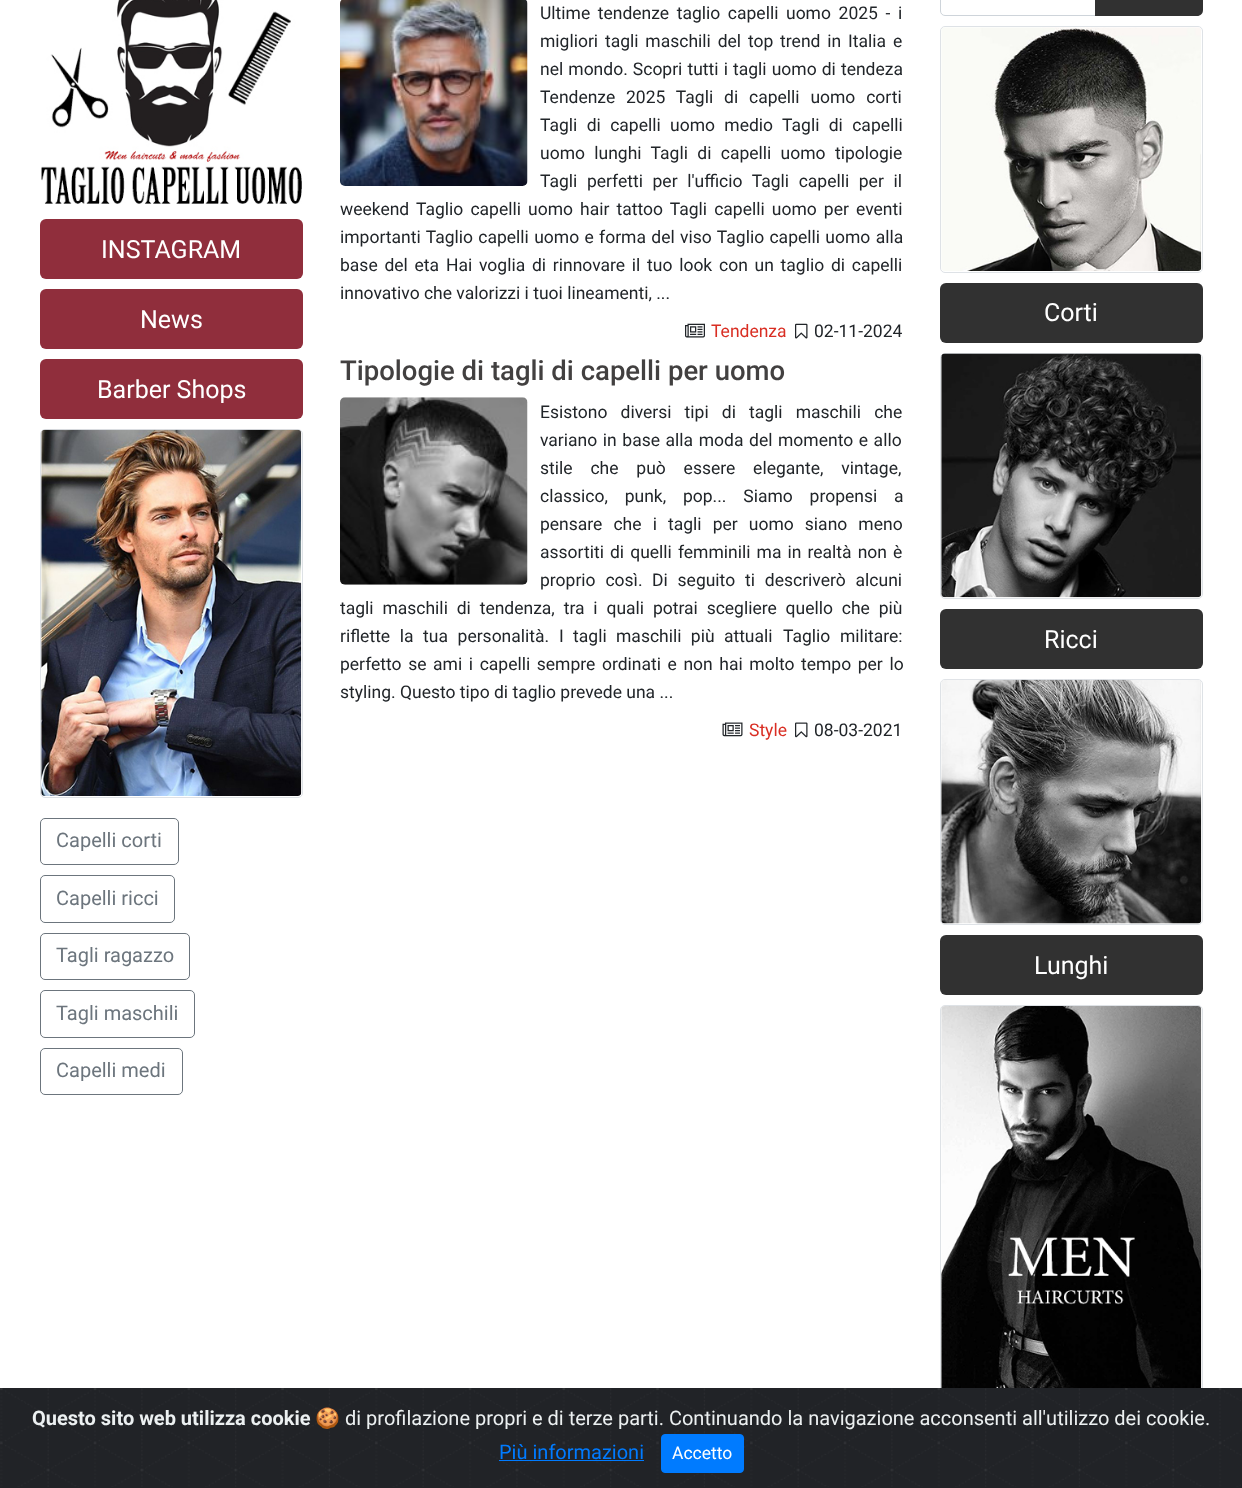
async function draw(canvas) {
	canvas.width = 1242;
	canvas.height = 1488;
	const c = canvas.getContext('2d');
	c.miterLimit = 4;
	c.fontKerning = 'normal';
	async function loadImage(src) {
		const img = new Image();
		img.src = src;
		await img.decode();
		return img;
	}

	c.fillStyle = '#fff';
	c.fillRect(0, 0, 1242, 1488);
	c.drawImage(await loadImage('img1.png'), 41, 0, 261, 204);
	c.fillStyle = '#902e3c';
	c.beginPath();
	c.roundRect(40, 219, 263, 60, 6);
	c.fill();
	c.font = '25px Roboto';
	c.fillStyle = '#fff';
	c.fillText('INSTAGRAM', 101, 258);
	c.fillStyle = '#902e3c';
	c.beginPath();
	c.roundRect(40, 289, 263, 60, 6);
	c.fill();
	c.fillStyle = '#fff';
	c.fillText('News', 140, 328);
	c.fillStyle = '#902e3c';
	c.beginPath();
	c.roundRect(40, 359, 263, 60, 6);
	c.fill();
	c.fillStyle = '#fff';
	c.fillText('Barber Shops', 97, 398);
	c.beginPath();
	c.roundRect(40.5, 429.5, 262, 368, 4.5);
	c.strokeStyle = '#dee2e6';
	c.stroke();
	c.drawImage(await loadImage('img2.png'), 41, 429, 261, 367);
	c.beginPath();
	c.roundRect(40.5, 818.5, 138, 46, 4.5);
	c.strokeStyle = '#6c757d';
	c.stroke();
	c.font = '20px Roboto';
	c.fillStyle = '#6c757d';
	c.fillText('Capelli corti', 56, 847);
	c.beginPath();
	c.roundRect(40.5, 875.5, 134, 47, 4.5);
	c.stroke();
	c.fillText('Capelli ricci', 56, 905);
	c.beginPath();
	c.roundRect(40.5, 933.5, 149, 46, 4.5);
	c.stroke();
	c.fillText('Tagli ragazzo', 56, 962);
	c.beginPath();
	c.roundRect(40.5, 990.5, 154, 47, 4.5);
	c.stroke();
	c.fillText('Tagli maschili', 56, 1020);
	c.beginPath();
	c.roundRect(40.5, 1048.5, 142, 46, 4.5);
	c.stroke();
	c.fillText('Capelli medi', 56, 1077);
	c.drawImage(await loadImage('img3.png'), 340, 0, 188, 186);
	c.wordSpacing = '3.25px';
	c.font = '17.5px Roboto';
	c.fillStyle = '#212529';
	c.fillText('Ultime tendenze taglio capelli uomo 2025 - i', 540, 19);
	c.wordSpacing = '2.5px';
	c.fillText('migliori tagli maschili del top trend in Italia e', 540, 47);
	c.wordSpacing = '0.75px';
	c.fillText('nel mondo. Scopri tutti i tagli uomo di tendeza', 540, 75);
	c.wordSpacing = '6.5px';
	c.fillText('Tendenze 2025 Tagli di capelli uomo corti', 540, 103);
	c.wordSpacing = '5px';
	c.fillText('Tagli di capelli uomo medio Tagli di capelli', 540, 131);
	c.fillText('uomo lunghi Tagli di capelli uomo tipologie', 540, 159);
	c.wordSpacing = '5.25px';
	c.fillText('Tagli perfetti per l\'ufficio Tagli capelli per il', 540, 187);
	c.wordSpacing = '2.75px';
	c.fillText('weekend Taglio capelli uomo hair tattoo Tagli capelli uomo per eventi', 340, 215);
	c.wordSpacing = '1px';
	c.fillText('importanti Taglio capelli uomo e forma del viso Taglio capelli uomo alla', 340, 243);
	c.wordSpacing = '2.4px';
	c.fillText('base del eta', 340, 271);
	c.fillText('Hai voglia di rinnovare il tuo look con un taglio di capelli', 446, 271);
	c.wordSpacing = '0px';
	c.fillText('innovativo che valorizzi i tuoi lineamenti, ...', 340, 299);
	c.drawImage(await loadImage('img4.png'), 685, 323, 20, 15);
	c.fillStyle = '#d92e23';
	c.fillText('Tendenza', 711, 337);
	c.drawImage(await loadImage('img5.png'), 795, 323, 13, 16);
	c.fillStyle = '#212529';
	c.fillText('02-11-2024', 814, 337);
	c.font = '500 27.5px Roboto';
	c.fillStyle = '#424040';
	c.fillText('Tipologie di tagli di capelli per uomo', 340, 380);
	c.drawImage(await loadImage('img6.png'), 340, 397, 188, 188);
	c.wordSpacing = '8.75px';
	c.font = '17.5px Roboto';
	c.fillStyle = '#212529';
	c.fillText('Esistono diversi tipi di tagli maschili che', 540, 418);
	c.wordSpacing = '1.25px';
	c.fillText('variano in base alla moda del momento e allo', 540, 446);
	c.wordSpacing = '13.5px';
	c.fillText('stile che può essere elegante, vintage,', 540, 474);
	c.wordSpacing = '12.5px';
	c.fillText('classico, punk, pop... Siamo propensi a', 540, 502);
	c.wordSpacing = '6.75px';
	c.fillText('pensare che i tagli per uomo siano meno', 540, 530);
	c.wordSpacing = '1.75px';
	c.fillText('assortiti di quelli femminili ma in realtà non è', 540, 558);
	c.wordSpacing = '5.5px';
	c.fillText('proprio così.', 540, 586);
	c.fillText('Di seguito ti descriverò alcuni', 652, 586);
	c.wordSpacing = '4.5px';
	c.fillText('tagli maschili di tendenza, tra i quali potrai scegliere quello che più', 340, 614);
	c.wordSpacing = '5.25px';
	c.fillText('riflette la tua personalità.', 340, 642);
	c.wordSpacing = '5px';
	c.fillText('I tagli maschili più attuali', 559, 642);
	c.wordSpacing = '5.25px';
	c.fillText('Taglio militare:', 783, 642);
	c.wordSpacing = '2.25px';
	c.fillText('perfetto se ami i capelli sempre ordinati e non hai molto tempo per lo', 340, 670);
	c.wordSpacing = '0px';
	c.fillText('styling. Questo tipo di taglio prevede una ...', 340, 698);
	c.drawImage(await loadImage('img7.png'), 722, 722, 21, 15);
	c.fillStyle = '#d92e23';
	c.fillText('Style', 749, 736);
	c.drawImage(await loadImage('img8.png'), 795, 722, 13, 16);
	c.fillStyle = '#212529';
	c.fillText('08-03-2021', 814, 736);
	c.beginPath();
	c.moveTo(945, -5.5);
	c.lineTo(1095.5, -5.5);
	c.lineTo(1095.5, 15.5);
	c.lineTo(945, 15.5);
	c.bezierCurveTo(942.5, 15.5, 940.5, 13.5, 940.5, 11);
	c.lineTo(940.5, -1);
	c.bezierCurveTo(940.5, -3.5, 942.5, -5.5, 945, -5.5);
	c.closePath();
	c.strokeStyle = '#ced4da';
	c.stroke();
	c.fillStyle = '#313131';
	c.beginPath();
	c.moveTo(1095, -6);
	c.lineTo(1197, -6);
	c.bezierCurveTo(1200.5, -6, 1203, -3.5, 1203, 0);
	c.lineTo(1203, 10);
	c.bezierCurveTo(1203, 13.5, 1200.5, 16, 1197, 16);
	c.lineTo(1095, 16);
	c.closePath();
	c.fill();
	c.beginPath();
	c.roundRect(940.5, 26.5, 262, 246, 4.5);
	c.strokeStyle = '#dee2e6';
	c.stroke();
	c.drawImage(await loadImage('img9.png'), 941, 27, 261, 244);
	c.beginPath();
	c.roundRect(940, 283, 263, 60, 6);
	c.fill();
	c.font = '25px Roboto';
	c.fillStyle = '#fff';
	c.fillText('Corti', 1044, 321);
	c.beginPath();
	c.roundRect(940.5, 353.5, 262, 245, 4.5);
	c.stroke();
	c.drawImage(await loadImage('img10.png'), 941, 353, 261, 245);
	c.fillStyle = '#313131';
	c.beginPath();
	c.roundRect(940, 609, 263, 60, 6);
	c.fill();
	c.fillStyle = '#fff';
	c.fillText('Ricci', 1044, 648);
	c.beginPath();
	c.roundRect(940.5, 679.5, 262, 245, 4.5);
	c.stroke();
	c.drawImage(await loadImage('img11.png'), 941, 679, 261, 245);
	c.fillStyle = '#313131';
	c.beginPath();
	c.roundRect(940, 935, 263, 60, 6);
	c.fill();
	c.fillStyle = '#fff';
	c.fillText('Lunghi', 1034, 974);
	c.beginPath();
	c.roundRect(940.5, 1005.5, 262, 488, 4.5);
	c.stroke();
	c.drawImage(await loadImage('img12.png'), 941, 1006, 261, 382);
	c.fillStyle = '#212327';
	c.fillRect(0, 1388, 1242, 100);
	c.drawImage(await loadImage('img13.png'), 0, 1388, 1241, 99);
	c.font = 'bold 20px Roboto';
	c.fillStyle = '#ecf0f1';
	c.fillText('Questo sito web utilizza cookie', 32, 1425);
	c.font = '20px Noto Color Emoji';
	c.fillText('🍪', 315, 1425);
	c.font = '20px Roboto';
	c.fillText('di profilazione propri e di terze parti. Continuando la navigazione acconsenti all\'utilizzo dei cookie.', 345, 1425);
	c.fillStyle = '#007bff';
	c.fillText('Più informazioni', 499, 1459);
	c.fillRect(499, 1460, 145, 1);
	c.beginPath();
	c.roundRect(661.5, 1434.5, 82, 38, 3.5);
	c.fill();
	c.strokeStyle = '#007bff';
	c.stroke();
	c.font = '17.5px Roboto';
	c.fillStyle = '#fff';
	c.fillText('Accetto', 672, 1459);
}

draw(document.querySelector('canvas'));
